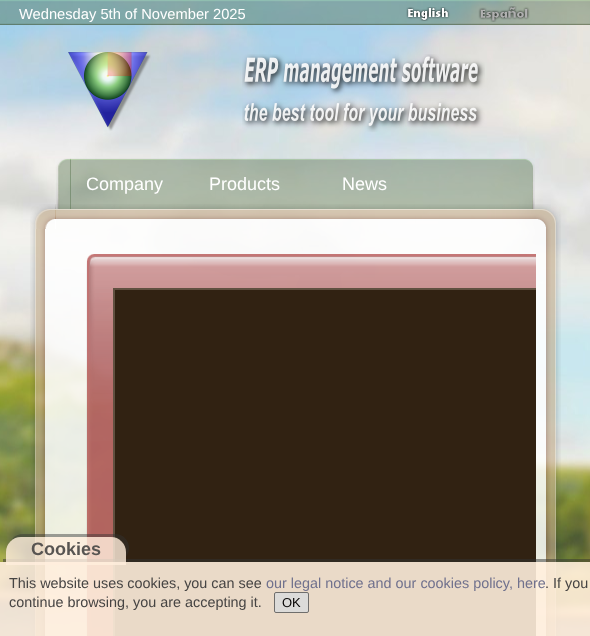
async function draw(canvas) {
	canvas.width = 590;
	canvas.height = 636;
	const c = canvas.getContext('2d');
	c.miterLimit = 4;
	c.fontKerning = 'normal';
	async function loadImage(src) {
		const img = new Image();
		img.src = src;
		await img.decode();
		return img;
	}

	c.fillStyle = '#fff';
	c.fillRect(0, 0, 590, 636);
	c.drawImage(await loadImage('img1.png'), 0, 0, 590, 636);
	c.drawImage(await loadImage('img2.png'), 0, 0, 590, 25);
	c.font = '14.7px Liberation Sans';
	c.fillText('Wednesday 5th of November 2025', 19, 19);
	c.drawImage(await loadImage('img3.png'), 406, 7, 44, 14);
	c.drawImage(await loadImage('img4.png'), 478, 6, 52, 16);
	c.drawImage(await loadImage('img5.png'), 68, 52, 83, 79);
	c.drawImage(await loadImage('img6.png'), 242, 54, 243, 78);
	c.drawImage(await loadImage('img10.png'), 30, 204, 26, 25);
	c.drawImage(await loadImage('img12.png'), 55, 204, 481, 25);
	c.drawImage(await loadImage('img7.png'), 56, 158, 15, 51);
	c.drawImage(await loadImage('img8.png'), 521, 158, 14, 51);
	c.drawImage(await loadImage('img9.png'), 70, 158, 451, 51);
	c.font = '18px Liberation Sans';
	for (const [text, x, y] of [
		['Company', 86, 190],
		['Products', 209, 190],
		['News', 342, 190],
	]) {
		c.fillText(text, x, y);
	}
	c.drawImage(await loadImage('img11.png'), 536, 204, 25, 25);
	c.drawImage(await loadImage('img13.png'), 30, 229, 10, 407);
	c.drawImage(await loadImage('img14.png'), 551, 229, 10, 407);
	c.drawImage(await loadImage('img15.png'), 40, 229, 15, 407);
	c.drawImage(await loadImage('img16.png'), 536, 229, 15, 407);
	c.fillStyle = '#ffffffd9';
	c.fillRect(55, 229, 481, 407);
	c.drawImage(await loadImage('img17.png'), 97, 254, 439, 382);
	c.drawImage(await loadImage('img18.png'), 86, 254, 11, 382);
	for (const [x, y, w, h, color] of [
		[113, 288, 423, 2, '#605040'],
		[113, 288, 2, 348, '#605040'],
		[115, 290, 421, 346, '#312212'],
	]) {
		c.fillStyle = color;
		c.fillRect(x, y, w, h);
	}
	c.save();
	c.beginPath();
	c.rect(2, 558, 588, 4);
	c.clip();
	c.fillStyle = '#32323280';
	c.filter = 'blur(0.5px)';
	c.beginPath();
	c.rect(3, 559, 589, 74);
	c.fill();
	c.filter = 'none';
	c.restore();
	c.fillStyle = '#ffeedde6';
	c.fillRect(0, 562, 590, 74);
	c.save();
	c.beginPath();
	c.moveTo(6, 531);
	c.lineTo(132, 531);
	c.lineTo(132, 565);
	c.lineTo(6, 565);
	c.closePath();
	c.moveTo(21, 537);
	c.lineTo(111, 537);
	c.bezierCurveTo(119.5, 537, 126, 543.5, 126, 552);
	c.lineTo(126, 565);
	c.lineTo(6, 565);
	c.lineTo(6, 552);
	c.bezierCurveTo(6, 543.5, 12.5, 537, 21, 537);
	c.closePath();
	c.clip('evenodd');
	c.fillStyle = '#32323273';
	c.filter = 'blur(0.5px)';
	c.beginPath();
	c.roundRect(9, 534, 120, 28, 15);
	c.fill();
	c.filter = 'none';
	c.restore();
	c.fillStyle = '#ffeeddcf';
	c.beginPath();
	c.roundRect(6, 537, 120, 28, [15, 15, 0, 0]);
	c.fill();
	c.font = 'bold 18px Liberation Sans';
	c.fillStyle = '#585552';
	c.fillText('Cookies', 31, 555);
	c.font = '14.4px Liberation Sans';
	c.fillStyle = '#464443';
	c.fillText('This website uses cookies, you can see', 9, 588);
	c.fillStyle = '#70718d';
	c.fillText('our legal notice and our cookies policy, here', 266, 588);
	c.fillStyle = '#464443';
	c.fillText('. If you', 545, 588);
	c.fillText('continue browsing, you are accepting it.', 9, 607);
	c.fillStyle = '#dcdbd9';
	c.beginPath();
	c.roundRect(274.5, 592.5, 34, 20, 1.5);
	c.fill();
	c.strokeStyle = '#6f6e6c';
	c.stroke();
	c.font = '13px Liberation Sans';
	c.fillStyle = '#050302';
	c.fillText('OK', 282, 607);
}

draw(document.querySelector('canvas'));
